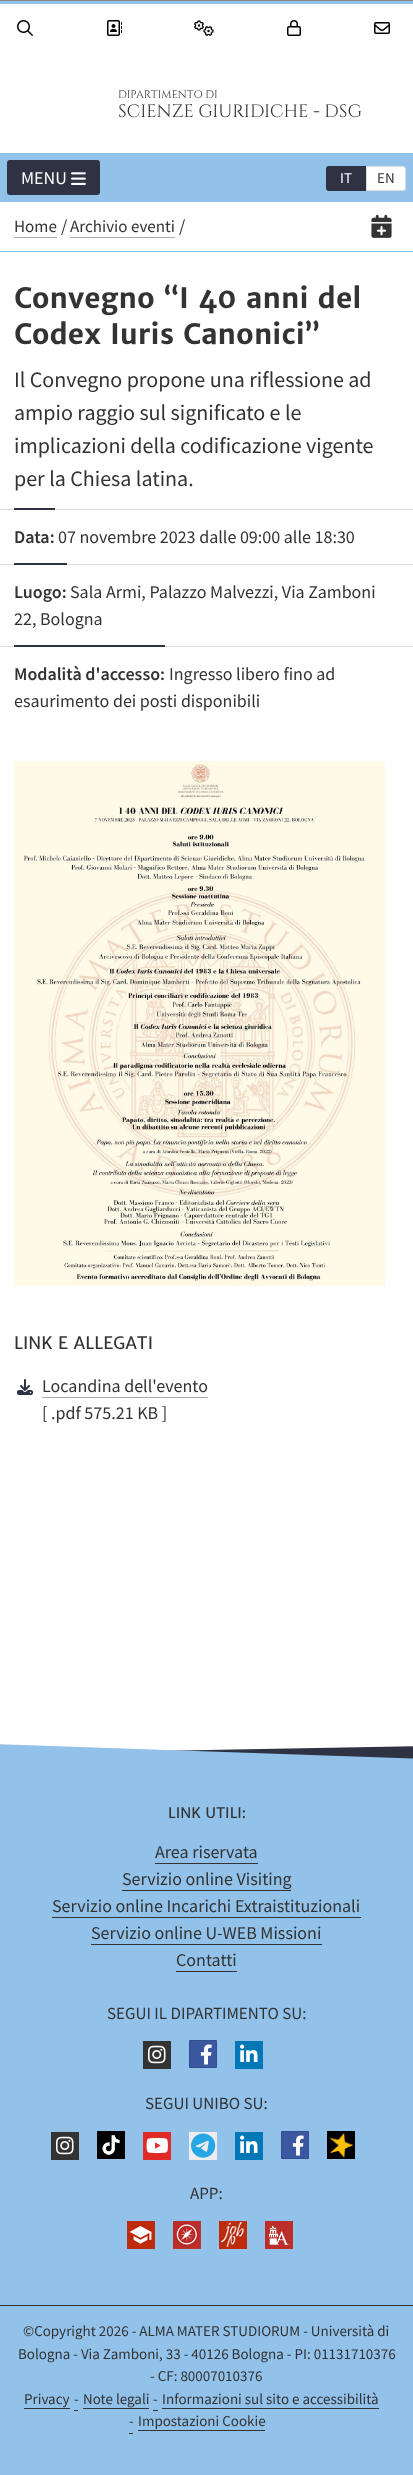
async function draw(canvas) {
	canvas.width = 413;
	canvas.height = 2475;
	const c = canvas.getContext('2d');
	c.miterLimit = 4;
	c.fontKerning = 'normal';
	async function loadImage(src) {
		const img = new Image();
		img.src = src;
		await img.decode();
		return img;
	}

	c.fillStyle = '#fff';
	c.fillRect(0, 0, 413, 2475);
	c.fillStyle = '#888';
	c.fillRect(0, 0, 413, 1);
	c.fillStyle = '#92c1e9';
	c.fillRect(0, 1, 413, 3);
	c.drawImage(await loadImage('img1.png'), 17, 20, 16, 16);
	c.drawImage(await loadImage('img2.png'), 107, 20, 15, 16);
	c.drawImage(await loadImage('img3.png'), 194, 20, 20, 16);
	c.drawImage(await loadImage('img4.png'), 287, 20, 14, 16);
	c.drawImage(await loadImage('img5.png'), 374, 22, 16, 12);
	c.font = '11px Cinzel';
	c.fillStyle = '#333';
	c.fillText('DIPARTIMENTO DI', 118, 98);
	c.font = '18px Cinzel';
	c.fillText('SCIENZE GIURIDICHE - DSG', 118, 117);
	c.fillStyle = '#92c1e9';
	c.fillRect(0, 153, 413, 49);
	c.fillStyle = '#2e3243';
	c.beginPath();
	c.roundRect(7, 160, 93, 35, 3);
	c.fill();
	c.font = '18px Source Sans Pro';
	c.fillStyle = '#fff';
	c.fillText('MENU', 21, 184);
	c.drawImage(await loadImage('img6.png'), 71, 172, 15, 13);
	c.fillStyle = '#2e3243';
	c.beginPath();
	c.roundRect(326, 166, 40, 25, [3, 0, 0, 3]);
	c.fill();
	c.font = '15px Source Sans Pro';
	c.fillStyle = '#fff';
	c.fillText('IT', 340, 183);
	c.beginPath();
	c.roundRect(366.5, 166.5, 39, 24, [0, 2.5, 2.5, 0]);
	c.fill();
	c.strokeStyle = '#ddd';
	c.stroke();
	c.fillStyle = '#333';
	c.fillText('EN', 377, 183);
	c.fillStyle = '#92c1e9';
	c.fillRect(0, 251, 413, 1);
	c.font = '17px Source Sans Pro';
	c.fillStyle = '#333';
	c.fillText('Home', 14, 232);
	c.fillStyle = '#aaa';
	c.fillRect(14, 237, 43, 1);
	c.font = '18px Source Sans Pro';
	c.fillStyle = '#333';
	c.fillText('/', 61, 232);
	c.font = '17px Source Sans Pro';
	c.fillText('Archivio eventi', 70, 232);
	c.fillStyle = '#aaa';
	c.fillRect(70, 237, 105, 1);
	c.font = '18px Source Sans Pro';
	c.fillStyle = '#333';
	c.fillText('/', 179, 232);
	c.drawImage(await loadImage('img7.png'), 371, 214, 21, 24);
	c.font = 'bold 28px Merriweather Sans';
	c.fillText('Convegno “I 40 anni del', 14, 308);
	c.fillText('Codex Iuris Canonici”', 14, 344);
	c.font = '22px Source Sans Pro';
	for (const [text, x, y] of [
		['Il Convegno propone una riflessione ad', 14, 387],
		['ampio raggio sul significato e le', 14, 420],
		['implicazioni della codificazione vigente', 14, 453],
		['per la Chiesa latina.', 14, 486],
	]) {
		c.fillText(text, x, y);
	}
	c.fillStyle = '#ddd';
	c.fillRect(0, 509, 413, 1);
	c.fillStyle = '#2e3243';
	c.fillRect(14, 508, 41, 2);
	c.font = '600 18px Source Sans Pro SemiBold';
	c.fillStyle = '#333';
	c.fillText('Data:', 14, 543);
	c.font = '18px Source Sans Pro';
	c.fillText('07 novembre 2023 dalle 09:00 alle 18:30', 58, 543);
	c.fillStyle = '#ddd';
	c.fillRect(0, 564, 413, 1);
	c.fillStyle = '#2e3243';
	c.fillRect(14, 563, 53, 2);
	c.font = '600 18px Source Sans Pro SemiBold';
	c.fillStyle = '#333';
	c.fillText('Luogo:', 14, 598);
	c.font = '18px Source Sans Pro';
	c.fillText('Sala Armi, Palazzo Malvezzi, Via Zamboni', 70, 598);
	c.fillText('22, Bologna', 14, 625);
	c.fillStyle = '#ddd';
	c.fillRect(0, 646, 413, 1);
	c.fillStyle = '#2e3243';
	c.fillRect(14, 645, 151, 2);
	c.font = '600 18px Source Sans Pro SemiBold';
	c.fillStyle = '#333';
	c.fillText('Modalità d\'accesso:', 14, 680);
	c.font = '18px Source Sans Pro';
	c.fillText('Ingresso libero fino ad', 169, 680);
	c.fillText('esaurimento dei posti disponibili', 14, 707);
	c.drawImage(await loadImage('img8.png'), 14, 761, 371, 525);
	c.font = '17px Merriweather Sans';
	c.fillText('LINK E ALLEGATI', 14, 1349);
	c.drawImage(await loadImage('img9.png'), 17, 1379, 16, 16);
	c.font = '18px Source Sans Pro';
	c.fillText('Locandina dell\'evento', 42, 1392);
	c.fillStyle = '#aaa';
	c.fillRect(42, 1397, 166, 1);
	c.fillStyle = '#333';
	c.fillText('[ .pdf 575.21 KB ]', 42, 1419);
	c.fillStyle = '#2e3243';
	c.beginPath();
	c.moveTo(-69, 1755);
	c.lineTo(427, 1746);
	c.lineTo(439, 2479);
	c.lineTo(-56, 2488);
	c.closePath();
	c.fill();
	c.fillStyle = '#92c1e9';
	c.beginPath();
	c.moveTo(-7, 1744);
	c.lineTo(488, 1761);
	c.lineTo(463, 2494);
	c.lineTo(-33, 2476);
	c.closePath();
	c.fill();
	c.font = '14.5px Merriweather Sans';
	c.fillStyle = '#333';
	c.fillText('LINK UTILI:', 168, 1818);
	c.font = '18px Source Sans Pro';
	c.fillText('Area riservata', 155, 1858);
	c.fillRect(155, 1863, 103, 1);
	c.fillText('Servizio online Visiting', 122, 1885);
	c.fillRect(122, 1890, 169, 1);
	c.fillText('Servizio online Incarichi Extraistituzionali', 52, 1912);
	c.fillRect(52, 1917, 309, 1);
	c.fillText('Servizio online U-WEB Missioni', 91, 1939);
	c.fillRect(91, 1944, 231, 1);
	c.fillText('Contatti', 176, 1966);
	c.fillRect(176, 1971, 61, 1);
	c.font = '17px Source Sans Pro';
	c.fillText('SEGUI IL DIPARTIMENTO SU:', 107, 2019);
	c.fillRect(143, 2041, 28, 28);
	c.drawImage(await loadImage('img10.png'), 148, 2045, 18, 19);
	c.fillStyle = '#3b579f';
	c.beginPath();
	c.rect(189.5, 2040.5, 27, 27);
	c.fill();
	c.strokeStyle = '#344d8c';
	c.stroke();
	c.drawImage(await loadImage('img11.png'), 200, 2044, 12, 21);
	c.fillStyle = '#0177b5';
	c.fillRect(235, 2041, 28, 28);
	c.drawImage(await loadImage('img12.png'), 240, 2044, 18, 18);
	c.fillStyle = '#333';
	c.fillText('SEGUI UNIBO SU:', 145, 2109);
	c.fillRect(51, 2132, 28, 28);
	c.drawImage(await loadImage('img10.png'), 56, 2136, 18, 19);
	c.drawImage(await loadImage('img13.png'), 97, 2131, 28, 28);
	c.fillStyle = '#df2a25';
	c.fillRect(143, 2132, 28, 28);
	c.drawImage(await loadImage('img14.png'), 146, 2138, 22, 15);
	c.fillStyle = '#ededed';
	c.fillRect(189, 2132, 28, 28);
	c.drawImage(await loadImage('img15.png'), 191, 2133, 25, 25);
	c.fillStyle = '#0177b5';
	c.fillRect(235, 2132, 28, 28);
	c.drawImage(await loadImage('img12.png'), 240, 2135, 18, 18);
	c.fillStyle = '#3b579f';
	c.beginPath();
	c.rect(281.5, 2131.5, 27, 27);
	c.fill();
	c.stroke();
	c.drawImage(await loadImage('img11.png'), 292, 2135, 12, 21);
	c.fillStyle = '#000';
	c.fillRect(327, 2131, 28, 28);
	c.drawImage(await loadImage('img16.png'), 329, 2133, 25, 25);
	c.fillStyle = '#333';
	c.fillText('APP:', 190, 2199);
	c.drawImage(await loadImage('img17.png'), 127, 2221, 28, 28);
	c.drawImage(await loadImage('img18.png'), 173, 2221, 28, 28);
	c.drawImage(await loadImage('img19.png'), 219, 2221, 28, 28);
	c.drawImage(await loadImage('img20.png'), 265, 2221, 28, 28);
	c.fillRect(0, 2305, 413, 1);
	c.font = '15px Source Sans Pro';
	for (const [text, x, y] of [
		['©Copyright 2026 - ALMA MATER STUDIORUM - Università di', 23, 2336],
		['Bologna - Via Zamboni, 33 - 40126 Bologna - PI: 01131710376', 18, 2359],
		['- CF: 80007010376', 150, 2381],
		['Privacy', 24, 2404],
	]) {
		c.fillText(text, x, y);
	}
	for (const [x, y, w, h, color] of [
		[24, 2408, 46, 1, '#333'],
		[74, 2410, 4, 1, '#333'],
		[83, 2408, 66, 1, '#333'],
	]) {
		c.fillStyle = color;
		c.fillRect(x, y, w, h);
	}
	c.fillText('-', 74, 2404);
	c.fillText('Note legali', 83, 2404);
	c.fillRect(153, 2410, 5, 1);
	c.fillRect(162, 2408, 217, 1);
	c.fillText('-', 153, 2404);
	c.fillText('Informazioni sul sito e accessibilità', 162, 2404);
	c.fillRect(129, 2433, 4, 1);
	c.fillRect(138, 2430, 127, 1);
	c.fillText('-', 129, 2426);
	c.fillText('Impostazioni Cookie', 138, 2426);
}

draw(document.querySelector('canvas'));
